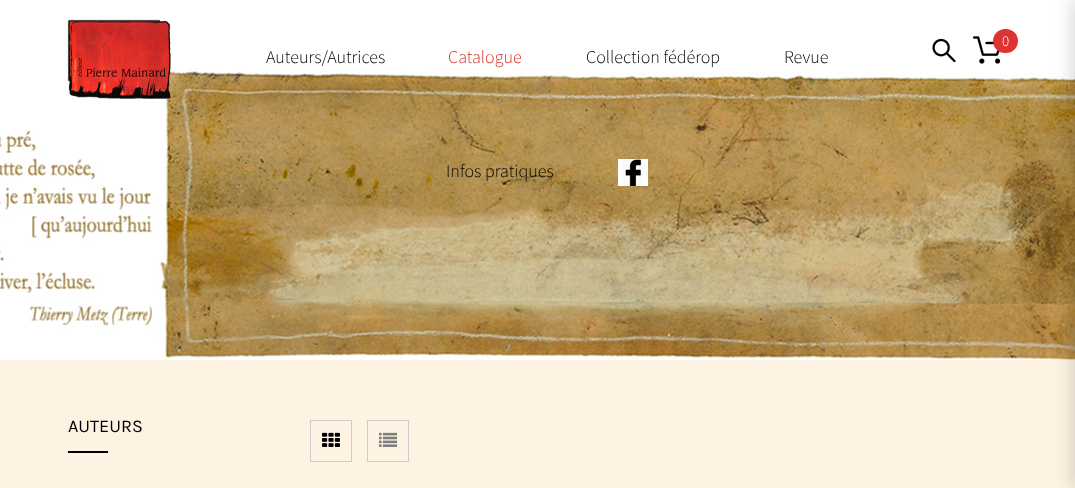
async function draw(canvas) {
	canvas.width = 1075;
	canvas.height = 488;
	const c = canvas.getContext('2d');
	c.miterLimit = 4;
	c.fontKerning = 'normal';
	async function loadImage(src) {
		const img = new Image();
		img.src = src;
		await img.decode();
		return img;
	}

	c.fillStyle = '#fef2e2';
	c.fillRect(0, 0, 1075, 488);
	c.drawImage(await loadImage('img1.png'), 0, 0, 1075, 360);
	c.drawImage(await loadImage('img2.png'), 67, 19, 104, 80);
	c.drawImage(await loadImage('img3.png'), 932, 38, 24, 25);
	c.drawImage(await loadImage('img4.png'), 973, 36, 28, 28);
	c.fillStyle = '#d33';
	c.beginPath();
	c.roundRect(993, 29, 25, 24, 12);
	c.fill();
	c.font = '300 15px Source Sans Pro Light';
	c.fillStyle = '#fff';
	c.fillText('0', 1002, 46);
	c.font = '300 18px Source Sans Pro Light';
	c.fillStyle = '#000';
	c.fillText('Auteurs/Autrices', 266, 63);
	c.fillStyle = '#d82c24';
	c.fillText('Catalogue', 448, 63);
	c.fillStyle = '#000';
	for (const [text, x, y] of [
		['Collection fédérop', 586, 63],
		['Revue', 784, 63],
		['Infos pratiques', 446, 177],
	]) {
		c.fillText(text, x, y);
	}
	c.drawImage(await loadImage('img5.png'), 618, 159, 30, 27);
	c.font = '18px Karla';
	c.fillText('AUTEURS', 68, 432);
	c.fillRect(68, 451, 40, 2);
	c.strokeStyle = '#ccc';
	c.strokeRect(310.5, 420.5, 41, 41);
	c.drawImage(await loadImage('img6.png'), 322, 432, 18, 15);
	c.strokeRect(367.5, 420.5, 41, 41);
	c.drawImage(await loadImage('img7.png'), 379, 432, 18, 15);
	c.fillStyle = '#00000033';
	c.filter = 'blur(10px)';
	c.beginPath();
	c.rect(1075, 0, 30, 488);
	c.fill();
	c.filter = 'none';
}

draw(document.querySelector('canvas'));
